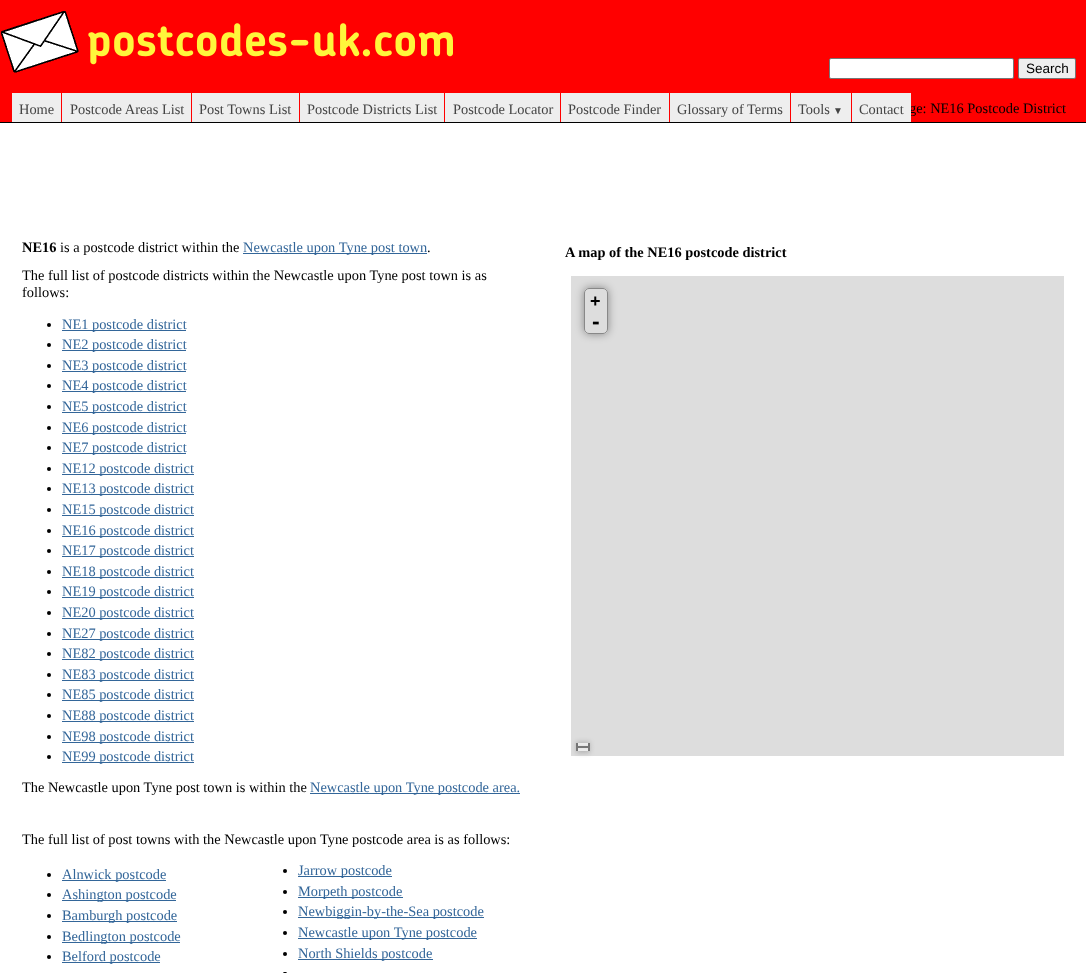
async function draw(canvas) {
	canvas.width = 1086;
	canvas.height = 973;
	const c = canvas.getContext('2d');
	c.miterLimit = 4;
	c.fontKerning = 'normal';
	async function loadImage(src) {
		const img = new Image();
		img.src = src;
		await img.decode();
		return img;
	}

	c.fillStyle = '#fff';
	c.fillRect(0, 0, 1086, 973);
	c.fillStyle = '#f00';
	c.fillRect(0, 0, 1086, 122);
	c.fillStyle = '#000';
	c.fillRect(0, 122, 1086, 1);
	c.drawImage(await loadImage('img1.png'), 1, 11, 452, 62);
	c.fillStyle = '#fff';
	c.beginPath();
	c.roundRect(829.5, 58.5, 184, 20, 1.5);
	c.fill();
	c.strokeStyle = '#767676';
	c.stroke();
	c.fillStyle = '#efefef';
	c.beginPath();
	c.roundRect(1018.5, 58.5, 57, 20, 1.5);
	c.fill();
	c.stroke();
	c.font = '13.5px Liberation Sans';
	c.fillStyle = '#000';
	c.fillText('Search', 1026, 73);
	c.fillStyle = '#eee';
	c.fillRect(12, 93, 49, 29);
	c.font = '14.4px Liberation Serif';
	c.fillStyle = '#444';
	c.fillText('Home', 19, 114);
	c.fillStyle = '#eee';
	c.fillRect(62, 93, 129, 29);
	c.fillStyle = '#444';
	c.fillText('Postcode Areas List', 70, 114);
	c.fillStyle = '#eee';
	c.fillRect(192, 93, 107, 29);
	c.fillStyle = '#444';
	c.fillText('Post Towns List', 199, 114);
	c.fillStyle = '#eee';
	c.fillRect(300, 93, 144, 29);
	c.fillStyle = '#444';
	c.fillText('Postcode Districts List', 307, 114);
	c.fillStyle = '#eee';
	c.fillRect(445, 93, 115, 29);
	c.fillStyle = '#444';
	c.fillText('Postcode Locator', 453, 114);
	c.fillStyle = '#eee';
	c.fillRect(561, 93, 108, 29);
	c.fillStyle = '#444';
	c.fillText('Postcode Finder', 568, 114);
	c.fillStyle = '#eee';
	c.fillRect(670, 93, 120, 29);
	c.fillStyle = '#444';
	c.fillText('Glossary of Terms', 677, 114);
	c.fillStyle = '#eee';
	c.fillRect(791, 93, 60, 29);
	c.fillStyle = '#444';
	c.fillText('Tools', 798, 114);
	c.font = '10px Liberation Serif';
	c.fillText('▼', 833, 114);
	c.font = '14.4px Liberation Serif';
	c.fillStyle = '#000';
	c.fillText('ge: NE16 Postcode District', 909, 113);
	c.fillStyle = '#eee';
	c.fillRect(852, 93, 59, 29);
	c.fillStyle = '#444';
	c.fillText('Contact', 859, 114);
	c.font = 'bold 14.4px Liberation Serif';
	c.fillStyle = '#000';
	c.fillText('NE16', 22, 252);
	c.font = '14.4px Liberation Serif';
	c.fillText('is a postcode district within the', 60, 252);
	c.fillStyle = '#369';
	c.fillRect(243, 253, 184, 1);
	c.fillText('Newcastle upon Tyne post town', 243, 252);
	c.fillStyle = '#000';
	for (const [text, x, y] of [
		['.', 427, 252],
		['The full list of postcode districts within the Newcastle upon Tyne post town is as', 22, 280],
		['follows:', 22, 297],
	]) {
		c.fillText(text, x, y);
	}
	c.beginPath();
	c.arc(49, 325, 2, 0, 2 * Math.PI);
	c.fill();
	c.fillStyle = '#369';
	c.fillRect(62, 330, 124, 1);
	c.fillText('NE1 postcode district', 62, 329);
	c.fillStyle = '#000';
	c.beginPath();
	c.arc(49, 345, 2, 0, 2 * Math.PI);
	c.fill();
	c.fillStyle = '#369';
	c.fillRect(62, 350, 124, 1);
	c.fillText('NE2 postcode district', 62, 349);
	c.fillStyle = '#000';
	c.beginPath();
	c.arc(49, 366, 2, 0, 2 * Math.PI);
	c.fill();
	c.fillStyle = '#369';
	c.fillRect(62, 371, 124, 1);
	c.fillText('NE3 postcode district', 62, 370);
	c.fillStyle = '#000';
	c.beginPath();
	c.arc(49, 386, 2, 0, 2 * Math.PI);
	c.fill();
	c.fillStyle = '#369';
	c.fillRect(62, 391, 124, 1);
	c.fillText('NE4 postcode district', 62, 390);
	c.fillStyle = '#000';
	c.beginPath();
	c.arc(49, 407, 2, 0, 2 * Math.PI);
	c.fill();
	c.fillStyle = '#369';
	c.fillRect(62, 412, 124, 1);
	c.fillText('NE5 postcode district', 62, 411);
	c.fillStyle = '#000';
	c.beginPath();
	c.arc(49, 428, 2, 0, 2 * Math.PI);
	c.fill();
	c.fillStyle = '#369';
	c.fillRect(62, 433, 124, 1);
	c.fillText('NE6 postcode district', 62, 432);
	c.fillStyle = '#000';
	c.beginPath();
	c.arc(49, 448, 2, 0, 2 * Math.PI);
	c.fill();
	c.fillStyle = '#369';
	c.fillRect(62, 453, 124, 1);
	c.fillText('NE7 postcode district', 62, 452);
	c.fillStyle = '#000';
	c.beginPath();
	c.arc(49, 469, 2, 0, 2 * Math.PI);
	c.fill();
	c.fillStyle = '#369';
	c.fillRect(62, 474, 132, 1);
	c.fillText('NE12 postcode district', 62, 473);
	c.fillStyle = '#000';
	c.beginPath();
	c.arc(49, 489, 2, 0, 2 * Math.PI);
	c.fill();
	c.fillStyle = '#369';
	c.fillRect(62, 494, 132, 1);
	c.fillText('NE13 postcode district', 62, 493);
	c.fillStyle = '#000';
	c.beginPath();
	c.arc(49, 510, 2, 0, 2 * Math.PI);
	c.fill();
	c.fillStyle = '#369';
	c.fillRect(62, 515, 132, 1);
	c.fillText('NE15 postcode district', 62, 514);
	c.fillStyle = '#000';
	c.beginPath();
	c.arc(49, 531, 2, 0, 2 * Math.PI);
	c.fill();
	c.fillStyle = '#369';
	c.fillRect(62, 536, 132, 1);
	c.fillText('NE16 postcode district', 62, 535);
	c.fillStyle = '#000';
	c.beginPath();
	c.arc(49, 551, 2, 0, 2 * Math.PI);
	c.fill();
	c.fillStyle = '#369';
	c.fillRect(62, 556, 132, 1);
	c.fillText('NE17 postcode district', 62, 555);
	c.fillStyle = '#000';
	c.beginPath();
	c.arc(49, 572, 2, 0, 2 * Math.PI);
	c.fill();
	c.fillStyle = '#369';
	c.fillRect(62, 577, 132, 1);
	c.fillText('NE18 postcode district', 62, 576);
	c.fillStyle = '#000';
	c.beginPath();
	c.arc(49, 592, 2, 0, 2 * Math.PI);
	c.fill();
	c.fillStyle = '#369';
	c.fillRect(62, 597, 132, 1);
	c.fillText('NE19 postcode district', 62, 596);
	c.fillStyle = '#000';
	c.beginPath();
	c.arc(49, 613, 2, 0, 2 * Math.PI);
	c.fill();
	c.fillStyle = '#369';
	c.fillRect(62, 618, 132, 1);
	c.fillText('NE20 postcode district', 62, 617);
	c.fillStyle = '#000';
	c.beginPath();
	c.arc(49, 634, 2, 0, 2 * Math.PI);
	c.fill();
	c.fillStyle = '#369';
	c.fillRect(62, 639, 132, 1);
	c.fillText('NE27 postcode district', 62, 638);
	c.fillStyle = '#000';
	c.beginPath();
	c.arc(49, 654, 2, 0, 2 * Math.PI);
	c.fill();
	c.fillStyle = '#369';
	c.fillRect(62, 659, 132, 1);
	c.fillText('NE82 postcode district', 62, 658);
	c.fillStyle = '#000';
	c.beginPath();
	c.arc(49, 675, 2, 0, 2 * Math.PI);
	c.fill();
	c.fillStyle = '#369';
	c.fillRect(62, 680, 132, 1);
	c.fillText('NE83 postcode district', 62, 679);
	c.fillStyle = '#000';
	c.beginPath();
	c.arc(49, 695, 2, 0, 2 * Math.PI);
	c.fill();
	c.fillStyle = '#369';
	c.fillRect(62, 700, 132, 1);
	c.fillText('NE85 postcode district', 62, 699);
	c.fillStyle = '#000';
	c.beginPath();
	c.arc(49, 716, 2, 0, 2 * Math.PI);
	c.fill();
	c.fillStyle = '#369';
	c.fillRect(62, 721, 132, 1);
	c.fillText('NE88 postcode district', 62, 720);
	c.fillStyle = '#000';
	c.beginPath();
	c.arc(49, 737, 2, 0, 2 * Math.PI);
	c.fill();
	c.fillStyle = '#369';
	c.fillRect(62, 742, 132, 1);
	c.fillText('NE98 postcode district', 62, 741);
	c.fillStyle = '#000';
	c.beginPath();
	c.arc(49, 757, 2, 0, 2 * Math.PI);
	c.fill();
	c.fillStyle = '#369';
	c.fillRect(62, 762, 132, 1);
	c.fillText('NE99 postcode district', 62, 761);
	c.fillStyle = '#000';
	c.fillText('The Newcastle upon Tyne post town is within the', 22, 792);
	c.fillStyle = '#369';
	c.fillRect(310, 793, 210, 1);
	c.fillText('Newcastle upon Tyne postcode area.', 310, 792);
	c.fillStyle = '#000';
	c.fillText('The full list of post towns with the Newcastle upon Tyne postcode area is as follows:', 22, 844);
	c.beginPath();
	c.arc(49, 875, 2, 0, 2 * Math.PI);
	c.fill();
	c.fillStyle = '#369';
	c.fillRect(62, 880, 104, 1);
	c.fillText('Alnwick postcode', 62, 879);
	c.fillStyle = '#000';
	c.beginPath();
	c.arc(285, 871, 2, 0, 2 * Math.PI);
	c.fill();
	c.fillStyle = '#369';
	c.fillRect(298, 876, 94, 1);
	c.fillText('Jarrow postcode', 298, 875);
	c.fillStyle = '#000';
	c.beginPath();
	c.arc(49, 895, 2, 0, 2 * Math.PI);
	c.fill();
	c.fillStyle = '#369';
	c.fillRect(62, 900, 114, 1);
	c.fillText('Ashington postcode', 62, 899);
	c.fillStyle = '#000';
	c.beginPath();
	c.arc(285, 892, 2, 0, 2 * Math.PI);
	c.fill();
	c.fillStyle = '#369';
	c.fillRect(298, 897, 105, 1);
	c.fillText('Morpeth postcode', 298, 896);
	c.fillStyle = '#000';
	c.beginPath();
	c.arc(49, 916, 2, 0, 2 * Math.PI);
	c.fill();
	c.fillStyle = '#369';
	c.fillRect(62, 921, 115, 1);
	c.fillText('Bamburgh postcode', 62, 920);
	c.fillStyle = '#000';
	c.beginPath();
	c.arc(285, 912, 2, 0, 2 * Math.PI);
	c.fill();
	c.fillStyle = '#369';
	c.fillRect(298, 917, 186, 1);
	c.fillText('Newbiggin-by-the-Sea postcode', 298, 916);
	c.fillStyle = '#000';
	c.beginPath();
	c.arc(49, 937, 2, 0, 2 * Math.PI);
	c.fill();
	c.fillStyle = '#369';
	c.fillRect(62, 942, 118, 1);
	c.fillText('Bedlington postcode', 62, 941);
	c.fillStyle = '#000';
	c.beginPath();
	c.arc(285, 933, 2, 0, 2 * Math.PI);
	c.fill();
	c.fillStyle = '#369';
	c.fillRect(298, 938, 179, 1);
	c.fillText('Newcastle upon Tyne postcode', 298, 937);
	c.fillStyle = '#000';
	c.beginPath();
	c.arc(49, 957, 2, 0, 2 * Math.PI);
	c.fill();
	c.fillStyle = '#369';
	c.fillRect(62, 962, 98, 1);
	c.fillText('Belford postcode', 62, 961);
	c.fillStyle = '#000';
	c.beginPath();
	c.arc(285, 954, 2, 0, 2 * Math.PI);
	c.fill();
	c.fillStyle = '#369';
	c.fillRect(298, 959, 135, 1);
	c.fillText('North Shields postcode', 298, 958);
	c.fillStyle = '#000';
	c.beginPath();
	c.roundRect(283, 972, 4, 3, 2);
	c.fill();
	c.font = 'bold 14.4px Liberation Serif';
	c.fillText('A map of the NE16 postcode district', 565, 257);
	c.fillStyle = '#ddd';
	c.fillRect(571, 276, 493, 480);
	c.save();
	c.beginPath();
	c.moveTo(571, 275);
	c.lineTo(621, 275);
	c.lineTo(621, 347);
	c.lineTo(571, 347);
	c.closePath();
	c.moveTo(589, 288);
	c.lineTo(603, 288);
	c.bezierCurveTo(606, 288, 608, 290, 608, 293);
	c.lineTo(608, 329);
	c.bezierCurveTo(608, 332, 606, 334, 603, 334);
	c.lineTo(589, 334);
	c.bezierCurveTo(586, 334, 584, 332, 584, 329);
	c.lineTo(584, 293);
	c.bezierCurveTo(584, 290, 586, 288, 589, 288);
	c.closePath();
	c.clip('evenodd');
	c.fillStyle = '#00000066';
	c.filter = 'blur(4px)';
	c.beginPath();
	c.roundRect(584, 288, 24, 46, 5);
	c.fill();
	c.filter = 'none';
	c.restore();
	c.beginPath();
	c.roundRect(584.5, 288.5, 23, 45, 4.5);
	c.strokeStyle = '#888';
	c.stroke();
	c.font = 'bold 18px Liberation Sans';
	c.fillStyle = '#000';
	c.fillText('+', 590, 307);
	c.font = 'bold 23px Liberation Sans';
	c.fillText('-', 592, 329);
	c.fillStyle = '#00000033';
	c.filter = 'blur(2.5px)';
	c.beginPath();
	c.rect(576, 742, 14, 5);
	c.fill();
	c.filter = 'none';
	for (const [x, y, w, h, color] of [
		[576, 743, 14, 3, '#eee'],
		[588, 743, 2, 5, '#777'],
		[576, 743, 2, 5, '#777'],
	]) {
		c.fillStyle = color;
		c.fillRect(x, y, w, h);
	}
	c.save();
	c.beginPath();
	c.moveTo(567, 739);
	c.lineTo(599, 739);
	c.lineTo(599, 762);
	c.lineTo(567, 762);
	c.closePath();
	c.moveTo(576, 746);
	c.lineTo(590, 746);
	c.lineTo(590, 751);
	c.lineTo(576, 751);
	c.closePath();
	c.clip('evenodd');
	c.fillStyle = '#00000033';
	c.filter = 'blur(2.5px)';
	c.beginPath();
	c.rect(576, 748, 14, 5);
	c.fill();
	c.filter = 'none';
	c.restore();
	for (const [x, y, w, h, color] of [
		[576, 748, 14, 3, '#ffffff80'],
		[576, 746, 14, 2, '#777'],
		[588, 746, 2, 5, '#777'],
		[576, 746, 2, 5, '#777'],
	]) {
		c.fillStyle = color;
		c.fillRect(x, y, w, h);
	}
}

draw(document.querySelector('canvas'));
